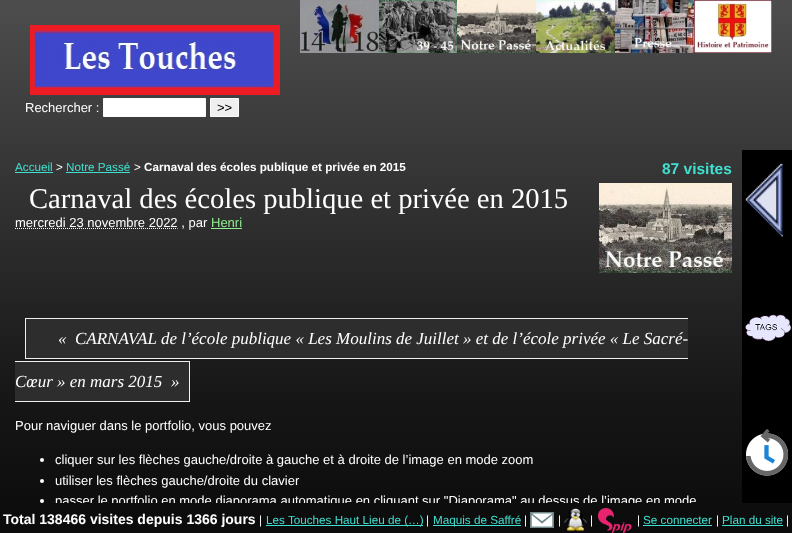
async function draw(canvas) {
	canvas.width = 792;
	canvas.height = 533;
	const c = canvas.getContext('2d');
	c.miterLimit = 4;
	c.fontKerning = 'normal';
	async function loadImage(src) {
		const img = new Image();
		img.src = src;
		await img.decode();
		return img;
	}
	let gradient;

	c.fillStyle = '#fff';
	c.fillRect(0, 0, 792, 533);
	gradient = c.createLinearGradient(396, 0, 396, 533);
	gradient.addColorStop(0, '#4d4d4d');
	gradient.addColorStop(0.15, '#424242');
	gradient.addColorStop(0.3, '#373737');
	gradient.addColorStop(0.45, '#2c2c2c');
	gradient.addColorStop(0.6, '#212121');
	gradient.addColorStop(0.75, '#161616');
	gradient.addColorStop(1, '#0b0b0b');
	c.fillStyle = gradient;
	c.fillRect(0, 0, 792, 533);
	c.drawImage(await loadImage('img1.png'), 300, 0, 79, 53);
	c.drawImage(await loadImage('img2.png'), 379, 0, 78, 53);
	c.drawImage(await loadImage('img3.png'), 457, 0, 79, 53);
	c.drawImage(await loadImage('img4.png'), 536, 0, 79, 53);
	c.drawImage(await loadImage('img5.png'), 615, 0, 79, 53);
	c.drawImage(await loadImage('img6.png'), 694, 0, 78, 53);
	c.drawImage(await loadImage('img7.png'), 30, 25, 250, 70);
	c.font = '13px Liberation Sans';
	c.fillStyle = '#fff';
	c.fillText('Rechercher :', 25, 112);
	c.beginPath();
	c.rect(103.5, 98.5, 102, 18);
	c.fill();
	c.strokeStyle = '#fffafa';
	c.stroke();
	c.fillStyle = '#efefef';
	c.beginPath();
	c.rect(210.5, 98.5, 28, 18);
	c.fill();
	c.stroke();
	c.fillStyle = '#000';
	c.fillText('>>', 217, 112);
	c.font = '11.7px Liberation Sans';
	c.fillStyle = '#40e0d0';
	c.fillText('Accueil', 15, 171);
	c.fillRect(15, 172, 38, 1);
	c.fillStyle = '#fff';
	c.fillText('>', 56, 171);
	c.fillStyle = '#40e0d0';
	c.fillText('Notre Passé', 66, 171);
	c.fillRect(66, 172, 64, 1);
	c.fillStyle = '#fff';
	c.fillText('>', 134, 171);
	c.font = 'bold 11.7px Liberation Sans';
	c.fillText('Carnaval des écoles publique et privée en 2015', 144, 171);
	c.font = 'bold 15.5px Liberation Sans';
	c.fillStyle = '#40e0d0';
	c.fillText('87 visites', 662, 174);
	c.font = '28.6px Liberation Serif';
	c.fillStyle = '#fff';
	c.fillText('Carnaval des écoles publique et privée en 2015', 29, 208);
	c.drawImage(await loadImage('img8.png'), 599, 183, 133, 90);
	c.beginPath();
	c.moveTo(15, 228.5);
	c.lineTo(177.5, 228.5);
	c.strokeStyle = '#fff';
	c.setLineDash([1, 1]);
	c.stroke();
	c.font = '13px Liberation Sans';
	c.fillText('mercredi 23 novembre 2022 , par', 15, 227);
	c.fillStyle = '#90ee90';
	c.fillText('Henri', 211, 227);
	c.fillRect(211, 228, 31, 1);
	c.fillStyle = '#2d2d2d';
	c.fillRect(26, 319, 662, 39);
	c.font = 'italic 17px Liberation Serif';
	c.fillStyle = '#fff';
	c.fillText('«', 58, 344);
	for (const [x, y, w, h, color] of [
		[25, 318, 663, 1, '#f0f0f0'],
		[25, 358, 663, 1, '#f0f0f0'],
		[25, 318, 1, 41, '#f0f0f0'],
	]) {
		c.fillStyle = color;
		c.fillRect(x, y, w, h);
	}
	c.fillStyle = '#fff';
	c.fillText('CARNAVAL de l’école publique « Les Moulins de Juillet » et de l’école privée « Le Sacré-', 75, 344);
	c.fillStyle = '#2d2d2d';
	c.fillRect(15, 362, 174, 39);
	c.fillStyle = '#fff';
	c.fillText('Cœur » en mars 2015', 15, 387);
	c.fillStyle = '#f0f0f0';
	c.fillRect(15, 361, 175, 1);
	c.fillRect(15, 401, 152, 1);
	c.fillStyle = '#fff';
	c.fillText('»', 171, 387);
	c.fillStyle = '#f0f0f0';
	c.fillRect(189, 361, 1, 41);
	c.fillRect(167, 401, 23, 1);
	c.font = '13px Liberation Sans';
	c.fillStyle = '#fff';
	c.fillText('Pour naviguer dans le portfolio, vous pouvez', 15, 430);
	c.beginPath();
	c.arc(42, 460, 2, 0, 2 * Math.PI);
	c.fill();
	c.fillText('cliquer sur les flèches gauche/droite à gauche et à droite de l’image en mode zoom', 55, 464);
	c.beginPath();
	c.arc(42, 481, 2, 0, 2 * Math.PI);
	c.fill();
	c.fillText('utiliser les flèches gauche/droite du clavier', 55, 485);
	c.beginPath();
	c.arc(42, 501, 2, 0, 2 * Math.PI);
	c.fill();
	c.save();
	c.beginPath();
	c.rect(15, 305, 717, 198);
	c.clip();
	c.fillText('passer le portfolio en mode diaporama automatique en cliquant sur "Diaporama" au dessus de l’image en mode', 55, 505);
	c.restore();
	c.fillStyle = '#000';
	c.fillRect(742, 150, 50, 353);
	c.drawImage(await loadImage('img9.png'), 745, 163, 38, 74);
	c.drawImage(await loadImage('img10.png'), 745, 314, 47, 28);
	c.drawImage(await loadImage('img11.png'), 746, 428, 43, 48);
	c.font = 'bold 14px Liberation Sans';
	c.fillStyle = '#fff';
	c.fillText('Total 138466 visites depuis 1366 jours', 3, 524);
	c.font = '11.7px Liberation Sans';
	c.fillText('|', 259, 524);
	c.fillStyle = '#40e0d0';
	c.fillRect(266, 525, 157, 1);
	c.fillText('Les Touches Haut Lieu de (…)', 266, 524);
	c.fillStyle = '#fff';
	c.fillText('|', 426, 524);
	c.fillStyle = '#40e0d0';
	c.fillRect(433, 525, 88, 1);
	c.fillText('Maquis de Saffré', 433, 524);
	c.fillStyle = '#fff';
	c.fillText('|', 524, 524);
	c.drawImage(await loadImage('img12.png'), 530, 512, 24, 16);
	c.fillText('|', 558, 524);
	c.drawImage(await loadImage('img13.png'), 564, 508, 23, 23);
	c.fillText('|', 590, 524);
	c.drawImage(await loadImage('img14.png'), 598, 508, 34, 25);
	c.fillText('|', 637, 524);
	c.fillStyle = '#40e0d0';
	c.fillText('Se connecter', 643, 524);
	c.fillRect(643, 525, 69, 1);
	c.fillStyle = '#fff';
	c.fillText('|', 716, 524);
	c.fillStyle = '#40e0d0';
	c.fillText('Plan du site', 722, 524);
	c.fillRect(722, 525, 61, 1);
	c.fillStyle = '#fff';
	c.fillText('|', 786, 524);
}

draw(document.querySelector('canvas'));
